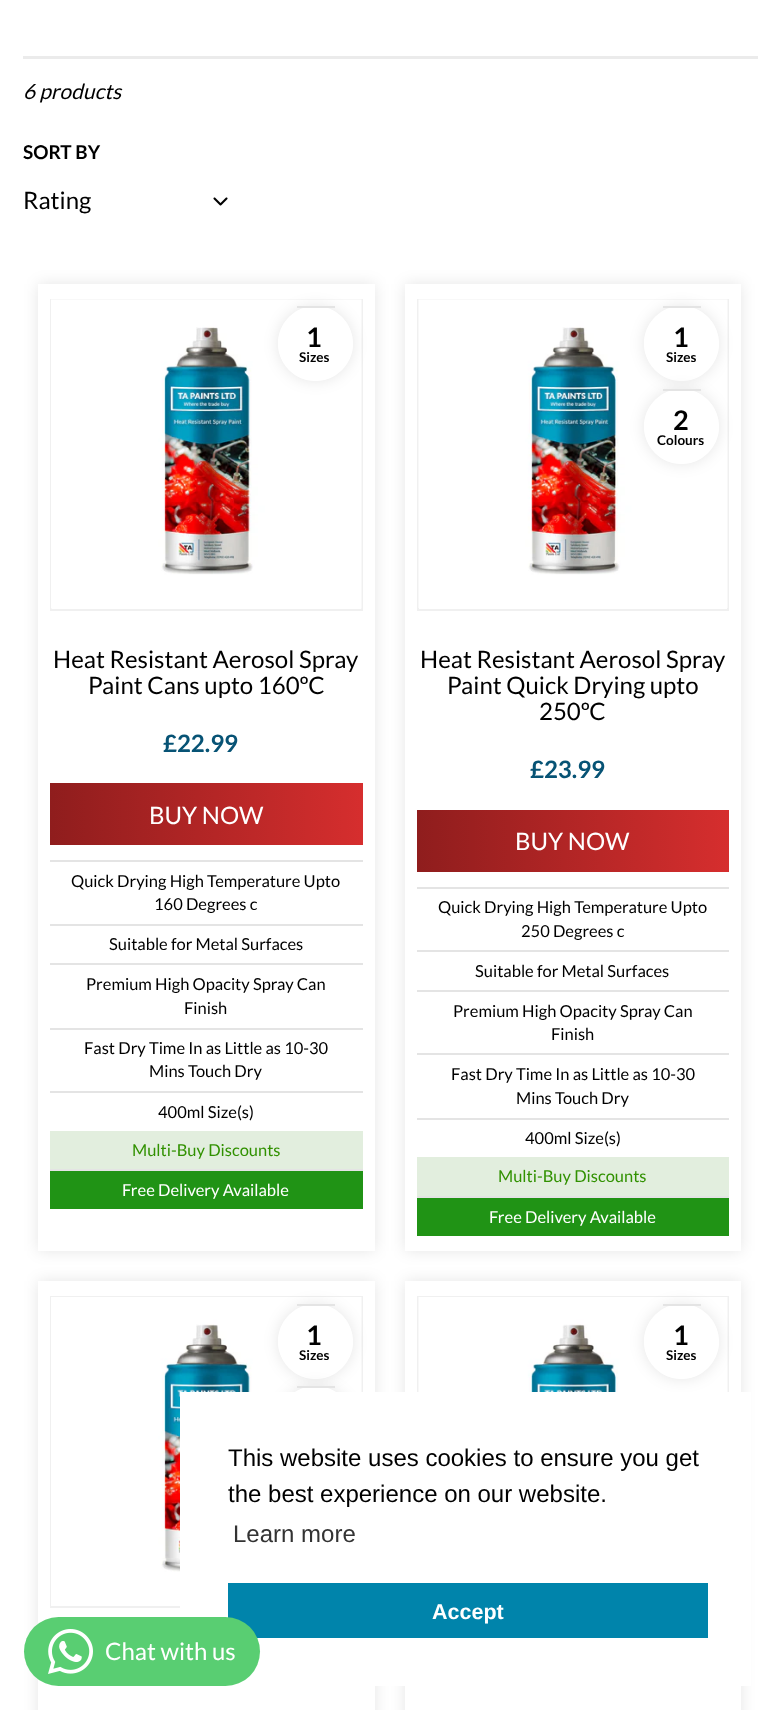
async function draw(canvas) {
	canvas.width = 779;
	canvas.height = 1710;
	const c = canvas.getContext('2d');
	c.miterLimit = 4;
	c.fontKerning = 'normal';
	async function loadImage(src) {
		const img = new Image();
		img.src = src;
		await img.decode();
		return img;
	}
	let gradient;

	c.fillStyle = '#fff';
	c.fillRect(0, 0, 779, 1710);
	c.fillStyle = '#ebebeb';
	c.fillRect(23, 56, 735, 3);
	c.font = 'italic 21px Lato';
	c.fillStyle = '#000';
	c.fillText('6 products', 23, 99);
	c.font = 'bold 19px Lato';
	c.fillText('SORT BY', 23, 159);
	c.font = '24px Lato';
	c.fillText('Rating', 23, 209);
	c.drawImage(await loadImage('img1.png'), 213, 197, 15, 9);
	c.save();
	c.beginPath();
	c.moveTo(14, 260);
	c.lineTo(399, 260);
	c.lineTo(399, 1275);
	c.lineTo(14, 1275);
	c.closePath();
	c.moveTo(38, 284);
	c.lineTo(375, 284);
	c.lineTo(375, 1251);
	c.lineTo(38, 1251);
	c.closePath();
	c.clip('evenodd');
	c.fillStyle = '#0000001a';
	c.filter = 'blur(7.5px)';
	c.beginPath();
	c.rect(38, 284, 337, 967);
	c.fill();
	c.filter = 'none';
	c.restore();
	c.strokeStyle = '#f0f0f0';
	c.lineWidth = 2;
	c.strokeRect(51, 300, 311, 310);
	c.drawImage(await loadImage('img2.png'), 51, 299, 311, 310);
	c.save();
	c.beginPath();
	c.moveTo(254, 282);
	c.lineTo(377, 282);
	c.lineTo(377, 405);
	c.lineTo(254, 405);
	c.closePath();
	c.moveTo(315.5, 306);
	c.bezierCurveTo(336, 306, 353, 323, 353, 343.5);
	c.bezierCurveTo(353, 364, 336, 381, 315.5, 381);
	c.bezierCurveTo(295, 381, 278, 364, 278, 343.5);
	c.bezierCurveTo(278, 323, 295, 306, 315.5, 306);
	c.closePath();
	c.clip('evenodd');
	c.fillStyle = '#0000001a';
	c.filter = 'blur(7.5px)';
	c.beginPath();
	c.roundRect(278, 306, 75, 75, 37.5);
	c.fill();
	c.filter = 'none';
	c.restore();
	c.fillStyle = '#ffffffe3';
	c.beginPath();
	c.arc(315.5, 343.5, 37.5, 0, 2 * Math.PI);
	c.fill();
	c.fillStyle = '#e4e4e4';
	c.fillRect(297, 306, 38, 2);
	c.font = 'bold 27px Lato';
	c.fillStyle = '#000';
	c.fillText('1', 306, 347);
	c.font = 'bold 13.5px Lato';
	c.fillText('Sizes', 299, 362);
	c.fillStyle = '#e4e4e4';
	c.fillRect(50, 860, 313, 2);
	c.font = '16.5px Lato';
	c.fillStyle = '#000';
	c.fillText('Quick Drying High Temperature Upto', 71, 887);
	c.fillText('160 Degrees c', 154, 910);
	c.fillStyle = '#e4e4e4';
	c.fillRect(50, 924, 313, 2);
	c.fillStyle = '#000';
	c.fillText('Suitable for Metal Surfaces', 109, 950);
	c.fillStyle = '#e4e4e4';
	c.fillRect(50, 963, 313, 2);
	c.fillStyle = '#000';
	c.fillText('Premium High Opacity Spray Can', 86, 990);
	c.fillText('Finish', 184, 1014);
	c.fillStyle = '#e4e4e4';
	c.fillRect(50, 1028, 313, 2);
	c.fillStyle = '#000';
	c.fillText('Fast Dry Time In as Little as 10-30', 84, 1054);
	c.fillText('Mins Touch Dry', 149, 1077);
	c.fillStyle = '#e4e4e4';
	c.fillRect(50, 1091, 313, 2);
	c.fillStyle = '#000';
	c.fillText('400ml Size(s)', 158, 1118);
	c.fillStyle = '#e2eede';
	c.fillRect(50, 1131, 313, 38);
	c.fillStyle = '#319100';
	c.fillText('Multi-Buy Discounts', 132, 1156);
	c.fillStyle = '#209315';
	c.fillRect(50, 1171, 313, 38);
	c.fillStyle = '#e4e4e4';
	c.fillRect(50, 1169, 313, 2);
	c.fillStyle = '#fff';
	c.fillText('Free Delivery Available', 122, 1196);
	c.font = '24px Lato';
	c.fillStyle = '#000';
	c.fillText('Heat Resistant Aerosol Spray', 53, 668);
	c.fillText('Paint Cans upto 160ºC', 88, 694);
	c.font = 'bold 24px Lato';
	c.fillStyle = '#075375';
	c.fillText('£22.99', 163, 752);
	gradient = c.createLinearGradient(50, 814, 363, 814);
	gradient.addColorStop(0, '#8f1d1d');
	gradient.addColorStop(1, '#d62e2e');
	c.fillStyle = gradient;
	c.fillRect(50, 783, 313, 62);
	c.font = '24px Lato';
	c.fillStyle = '#fff';
	c.fillText('BUY NOW', 149, 824);
	c.save();
	c.beginPath();
	c.moveTo(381, 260);
	c.lineTo(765, 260);
	c.lineTo(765, 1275);
	c.lineTo(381, 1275);
	c.closePath();
	c.moveTo(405, 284);
	c.lineTo(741, 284);
	c.lineTo(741, 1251);
	c.lineTo(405, 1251);
	c.closePath();
	c.clip('evenodd');
	c.fillStyle = '#0000001a';
	c.filter = 'blur(7.5px)';
	c.beginPath();
	c.rect(405, 284, 336, 967);
	c.fill();
	c.filter = 'none';
	c.restore();
	c.strokeRect(418, 300, 310, 310);
	c.drawImage(await loadImage('img3.png'), 418, 299, 310, 309);
	c.save();
	c.beginPath();
	c.moveTo(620, 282);
	c.lineTo(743, 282);
	c.lineTo(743, 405);
	c.lineTo(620, 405);
	c.closePath();
	c.moveTo(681.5, 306);
	c.bezierCurveTo(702, 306, 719, 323, 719, 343.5);
	c.bezierCurveTo(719, 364, 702, 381, 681.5, 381);
	c.bezierCurveTo(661, 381, 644, 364, 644, 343.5);
	c.bezierCurveTo(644, 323, 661, 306, 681.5, 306);
	c.closePath();
	c.clip('evenodd');
	c.fillStyle = '#0000001a';
	c.filter = 'blur(7.5px)';
	c.beginPath();
	c.roundRect(644, 306, 75, 75, 37.5);
	c.fill();
	c.filter = 'none';
	c.restore();
	c.fillStyle = '#ffffffe3';
	c.beginPath();
	c.arc(681.5, 343.5, 37.5, 0, 2 * Math.PI);
	c.fill();
	c.fillStyle = '#e4e4e4';
	c.fillRect(663, 306, 38, 2);
	c.font = 'bold 27px Lato';
	c.fillStyle = '#000';
	c.fillText('1', 673, 347);
	c.font = 'bold 13.5px Lato';
	c.fillText('Sizes', 666, 362);
	c.save();
	c.beginPath();
	c.moveTo(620, 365);
	c.lineTo(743, 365);
	c.lineTo(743, 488);
	c.lineTo(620, 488);
	c.closePath();
	c.moveTo(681.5, 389);
	c.bezierCurveTo(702, 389, 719, 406, 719, 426.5);
	c.bezierCurveTo(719, 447, 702, 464, 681.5, 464);
	c.bezierCurveTo(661, 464, 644, 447, 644, 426.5);
	c.bezierCurveTo(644, 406, 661, 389, 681.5, 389);
	c.closePath();
	c.clip('evenodd');
	c.fillStyle = '#0000001a';
	c.filter = 'blur(7.5px)';
	c.beginPath();
	c.roundRect(644, 389, 75, 75, 37.5);
	c.fill();
	c.filter = 'none';
	c.restore();
	c.fillStyle = '#ffffffe3';
	c.beginPath();
	c.arc(681.5, 426.5, 37.5, 0, 2 * Math.PI);
	c.fill();
	c.fillStyle = '#e4e4e4';
	c.fillRect(663, 389, 38, 2);
	c.font = 'bold 27px Lato';
	c.fillStyle = '#000';
	c.fillText('2', 673, 430);
	c.font = 'bold 13.5px Lato';
	c.fillText('Colours', 657, 445);
	c.fillStyle = '#e4e4e4';
	c.fillRect(417, 887, 312, 2);
	c.font = '16.5px Lato';
	c.fillStyle = '#000';
	c.fillText('Quick Drying High Temperature Upto', 438, 913);
	c.fillText('250 Degrees c', 521, 937);
	c.fillStyle = '#e4e4e4';
	c.fillRect(417, 950, 312, 2);
	c.fillStyle = '#000';
	c.fillText('Suitable for Metal Surfaces', 475, 977);
	c.fillStyle = '#e4e4e4';
	c.fillRect(417, 990, 312, 2);
	c.fillStyle = '#000';
	c.fillText('Premium High Opacity Spray Can', 453, 1017);
	c.fillText('Finish', 551, 1040);
	c.fillStyle = '#e4e4e4';
	c.fillRect(417, 1053, 312, 2);
	c.fillStyle = '#000';
	c.fillText('Fast Dry Time In as Little as 10-30', 451, 1080);
	c.fillText('Mins Touch Dry', 516, 1104);
	c.fillStyle = '#e4e4e4';
	c.fillRect(417, 1118, 312, 2);
	c.fillStyle = '#000';
	c.fillText('400ml Size(s)', 525, 1144);
	c.fillStyle = '#e2eede';
	c.fillRect(417, 1157, 312, 39);
	c.fillStyle = '#319100';
	c.fillText('Multi-Buy Discounts', 498, 1182);
	c.fillStyle = '#209315';
	c.fillRect(417, 1198, 312, 38);
	c.fillStyle = '#e4e4e4';
	c.fillRect(417, 1196, 312, 2);
	c.fillStyle = '#fff';
	c.fillText('Free Delivery Available', 489, 1223);
	c.font = '24px Lato';
	c.fillStyle = '#000';
	for (const [text, x, y] of [
		['Heat Resistant Aerosol Spray', 420, 668],
		['Paint Quick Drying upto', 447, 694],
		['250ºC', 539, 720],
	]) {
		c.fillText(text, x, y);
	}
	c.font = 'bold 24px Lato';
	c.fillStyle = '#075375';
	c.fillText('£23.99', 530, 778);
	gradient = c.createLinearGradient(417, 841, 729, 841);
	gradient.addColorStop(0, '#8f1d1d');
	gradient.addColorStop(1, '#d62e2e');
	c.fillStyle = gradient;
	c.fillRect(417, 810, 312, 62);
	c.font = '24px Lato';
	c.fillStyle = '#fff';
	c.fillText('BUY NOW', 515, 850);
	c.save();
	c.beginPath();
	c.moveTo(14, 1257);
	c.lineTo(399, 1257);
	c.lineTo(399, 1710);
	c.lineTo(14, 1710);
	c.closePath();
	c.moveTo(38, 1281);
	c.lineTo(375, 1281);
	c.lineTo(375, 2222);
	c.lineTo(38, 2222);
	c.closePath();
	c.clip('evenodd');
	c.fillStyle = '#0000001a';
	c.filter = 'blur(7.5px)';
	c.beginPath();
	c.rect(38, 1281, 337, 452);
	c.fill();
	c.filter = 'none';
	c.restore();
	c.strokeRect(51, 1297, 311, 310);
	c.drawImage(await loadImage('img4.png'), 51, 1297, 311, 309);
	c.save();
	c.beginPath();
	c.moveTo(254, 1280);
	c.lineTo(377, 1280);
	c.lineTo(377, 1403);
	c.lineTo(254, 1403);
	c.closePath();
	c.moveTo(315.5, 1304);
	c.bezierCurveTo(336, 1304, 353, 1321, 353, 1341.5);
	c.bezierCurveTo(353, 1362, 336, 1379, 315.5, 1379);
	c.bezierCurveTo(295, 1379, 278, 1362, 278, 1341.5);
	c.bezierCurveTo(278, 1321, 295, 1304, 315.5, 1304);
	c.closePath();
	c.clip('evenodd');
	c.fillStyle = '#0000001a';
	c.filter = 'blur(7.5px)';
	c.beginPath();
	c.roundRect(278, 1304, 75, 75, 37.5);
	c.fill();
	c.filter = 'none';
	c.restore();
	c.fillStyle = '#ffffffe3';
	c.beginPath();
	c.arc(315.5, 1341.5, 37.5, 0, 2 * Math.PI);
	c.fill();
	c.fillStyle = '#e4e4e4';
	c.fillRect(297, 1304, 38, 2);
	c.font = 'bold 27px Lato';
	c.fillStyle = '#000';
	c.fillText('1', 306, 1345);
	c.font = 'bold 13.5px Lato';
	c.fillText('Sizes', 299, 1360);
	c.save();
	c.beginPath();
	c.moveTo(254, 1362);
	c.lineTo(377, 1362);
	c.lineTo(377, 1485);
	c.lineTo(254, 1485);
	c.closePath();
	c.moveTo(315.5, 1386);
	c.bezierCurveTo(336, 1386, 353, 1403, 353, 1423.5);
	c.bezierCurveTo(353, 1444, 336, 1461, 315.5, 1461);
	c.bezierCurveTo(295, 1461, 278, 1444, 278, 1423.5);
	c.bezierCurveTo(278, 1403, 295, 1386, 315.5, 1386);
	c.closePath();
	c.clip('evenodd');
	c.fillStyle = '#0000001a';
	c.filter = 'blur(7.5px)';
	c.beginPath();
	c.roundRect(278, 1386, 75, 75, 37.5);
	c.fill();
	c.filter = 'none';
	c.restore();
	c.fillStyle = '#ffffffe3';
	c.beginPath();
	c.arc(315.5, 1423.5, 37.5, 0, 2 * Math.PI);
	c.fill();
	c.fillStyle = '#e4e4e4';
	c.fillRect(297, 1386, 38, 2);
	c.save();
	c.beginPath();
	c.moveTo(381, 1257);
	c.lineTo(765, 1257);
	c.lineTo(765, 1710);
	c.lineTo(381, 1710);
	c.closePath();
	c.moveTo(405, 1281);
	c.lineTo(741, 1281);
	c.lineTo(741, 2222);
	c.lineTo(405, 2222);
	c.closePath();
	c.clip('evenodd');
	c.fillStyle = '#0000001a';
	c.filter = 'blur(7.5px)';
	c.beginPath();
	c.rect(405, 1281, 336, 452);
	c.fill();
	c.filter = 'none';
	c.restore();
	c.strokeRect(418, 1297, 310, 310);
	c.drawImage(await loadImage('img5.png'), 418, 1297, 310, 95);
	c.save();
	c.beginPath();
	c.moveTo(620, 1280);
	c.lineTo(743, 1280);
	c.lineTo(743, 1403);
	c.lineTo(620, 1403);
	c.closePath();
	c.moveTo(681.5, 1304);
	c.bezierCurveTo(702, 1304, 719, 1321, 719, 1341.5);
	c.bezierCurveTo(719, 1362, 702, 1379, 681.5, 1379);
	c.bezierCurveTo(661, 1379, 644, 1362, 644, 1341.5);
	c.bezierCurveTo(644, 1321, 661, 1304, 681.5, 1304);
	c.closePath();
	c.clip('evenodd');
	c.fillStyle = '#0000001a';
	c.filter = 'blur(7.5px)';
	c.beginPath();
	c.roundRect(644, 1304, 75, 75, 37.5);
	c.fill();
	c.filter = 'none';
	c.restore();
	c.fillStyle = '#ffffffe3';
	c.beginPath();
	c.arc(681.5, 1341.5, 37.5, 0, 2 * Math.PI);
	c.fill();
	c.fillStyle = '#e4e4e4';
	c.fillRect(663, 1304, 38, 2);
	c.font = 'bold 27px Lato';
	c.fillStyle = '#000';
	c.fillText('1', 673, 1345);
	c.font = 'bold 13.5px Lato';
	c.fillText('Sizes', 666, 1360);
	c.fillStyle = '#fff';
	c.fillRect(180, 1392, 571, 294);
	c.font = '24px Liberation Sans';
	c.fillStyle = '#000';
	c.fillText('This website uses cookies to ensure you get', 228, 1466);
	c.fillText('the best experience on our website.', 228, 1502);
	c.fillStyle = '#333';
	c.fillText('Learn more', 233, 1542);
	c.fillStyle = '#0084ab';
	c.fillRect(228, 1583, 480, 55);
	c.font = 'bold 21.5px Liberation Sans';
	c.fillStyle = '#fff';
	c.fillText('Accept', 432, 1619);
	c.fillStyle = '#59ce72';
	c.beginPath();
	c.roundRect(24, 1617, 236, 69, 34.5);
	c.fill();
	c.drawImage(await loadImage('img6.png'), 48, 1629, 45, 45);
	c.font = '24px Lato';
	c.fillStyle = '#fff';
	c.fillText('Chat with us', 105, 1660);
}

draw(document.querySelector('canvas'));
